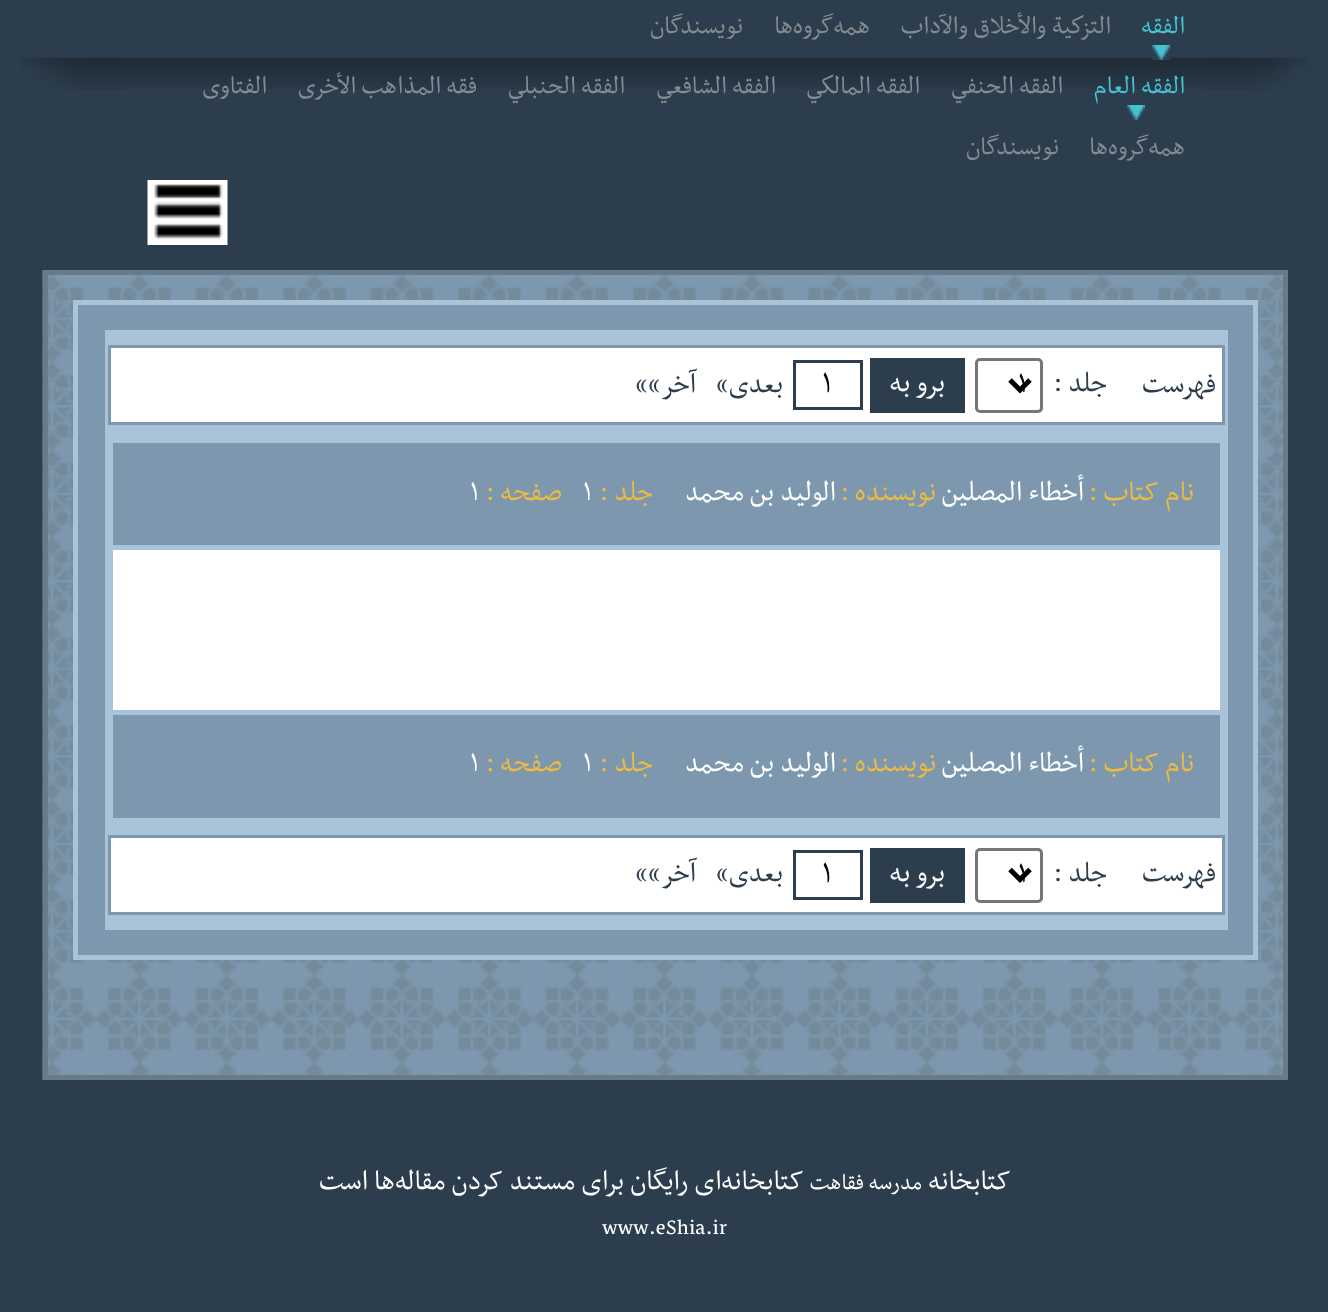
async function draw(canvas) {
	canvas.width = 1328;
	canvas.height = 1312;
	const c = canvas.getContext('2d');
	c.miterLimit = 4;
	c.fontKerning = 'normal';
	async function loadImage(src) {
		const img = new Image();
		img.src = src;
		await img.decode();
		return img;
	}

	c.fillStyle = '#2c3e4e';
	c.fillRect(0, 0, 1328, 1312);
	c.direction = 'rtl';
	c.font = '28.75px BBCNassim';
	c.fillStyle = '#45c3d1';
	c.fillText('الفقه', 1185, 33);
	c.fillStyle = '#858c91';
	for (const [text, x, y] of [
		['التزكية والأخلاق والآداب', 1111, 33],
		['همه‌گروه‌ها', 870, 33],
		['نویسندگان', 743, 33],
	]) {
		c.fillText(text, x, y);
	}
	c.drawImage(await loadImage('img3.png'), 125, 57, 1080, 32);
	c.drawImage(await loadImage('img1.png'), 1152, 45, 18, 15);
	c.drawImage(await loadImage('img2.png'), 1205, 57, 106, 34);
	c.fillStyle = '#45c3d1';
	c.fillText('الفقه العام', 1185, 93);
	c.fillStyle = '#858c91';
	for (const [text, x, y] of [
		['الفقه الحنفي', 1063, 93],
		['الفقه المالكي', 920, 93],
		['الفقه الشافعي', 776, 93],
		['الفقه الحنبلي', 625, 93],
		['فقه المذاهب الأخرى', 477, 93],
		['الفتاوى', 267, 93],
	]) {
		c.fillText(text, x, y);
	}
	c.drawImage(await loadImage('img4.png'), 1127, 105, 18, 15);
	c.fillText('همه‌گروه‌ها', 1185, 154);
	c.fillText('نویسندگان', 1059, 154);
	c.drawImage(await loadImage('img5.png'), 19, 57, 106, 33);
	c.drawImage(await loadImage('img6.png'), 147, 180, 81, 65);
	c.drawImage(await loadImage('img7.png'), 42, 270, 1241, 810);
	c.strokeStyle = '#697a89';
	c.lineWidth = 5;
	c.strokeRect(45.5, 272.5, 1240, 805);
	c.fillStyle = '#7d98ae';
	c.beginPath();
	c.rect(75.5, 302.5, 1180, 655);
	c.fill();
	c.strokeStyle = '#a9c3d9';
	c.stroke();
	c.fillStyle = '#a9c3d9';
	c.fillRect(105, 330, 1123, 600);
	c.fillStyle = '#fff';
	c.beginPath();
	c.rect(109.5, 346.5, 1114, 77);
	c.fill();
	c.strokeStyle = '#7d98ae';
	c.lineWidth = 3;
	c.stroke();
	c.font = '32px BBCNassim';
	c.fillStyle = '#2c3e4e';
	c.fillText('فهرست', 1216, 392);
	c.fillText('جلد :', 1107, 391);
	c.beginPath();
	c.roundRect(976.5, 359.5, 65, 52, 3.5);
	c.strokeStyle = '#767676';
	c.stroke();
	c.beginPath();
	c.moveTo(1010, 380);
	c.lineTo(1020, 390);
	c.lineTo(1030, 380);
	c.strokeStyle = '#000';
	c.lineWidth = 5;
	c.stroke();
	c.direction = 'ltr';
	c.font = '33px BBCNassim';
	c.fillStyle = '#000';
	c.fillText('1', 1018, 392);
	c.fillStyle = '#2c3e4e';
	c.fillRect(870, 358, 95, 55);
	c.direction = 'rtl';
	c.fillStyle = '#fff';
	c.fillText('برو به', 945, 391);
	c.strokeStyle = '#2c3e4e';
	c.lineWidth = 3;
	c.strokeRect(794.5, 361.5, 67, 47);
	c.direction = 'ltr';
	c.font = '35px BBCNassim';
	c.fillStyle = '#000';
	c.fillText('1', 822, 392);
	c.direction = 'rtl';
	c.font = '32px BBCNassim';
	c.fillStyle = '#2c3e4e';
	c.fillText('بعدی»', 783, 392);
	c.fillText('آخر»»', 696, 392);
	c.fillStyle = '#7d98ae';
	c.fillRect(113, 443, 1107, 102);
	c.fillStyle = '#eebb41';
	c.fillText('نام کتاب :', 1194, 500);
	c.fillStyle = '#fff';
	c.fillText('أخطاء المصلين', 1084, 500);
	c.fillStyle = '#eebb41';
	c.fillText('نویسنده :', 936, 500);
	c.fillStyle = '#fff';
	c.fillText('الوليد بن محمد', 836, 500);
	c.fillStyle = '#eebb41';
	c.fillText('جلد :', 653, 500);
	c.direction = 'ltr';
	c.fillStyle = '#fff';
	c.fillText('1', 583, 500);
	c.direction = 'rtl';
	c.fillStyle = '#eebb41';
	c.fillText('صفحه :', 562, 500);
	c.direction = 'ltr';
	c.fillStyle = '#fff';
	c.fillText('1', 470, 500);
	c.fillRect(113, 550, 1107, 160);
	c.fillStyle = '#7d98ae';
	c.fillRect(113, 715, 1107, 103);
	c.direction = 'rtl';
	c.fillStyle = '#eebb41';
	c.fillText('نام کتاب :', 1194, 771);
	c.fillStyle = '#fff';
	c.fillText('أخطاء المصلين', 1084, 771);
	c.fillStyle = '#eebb41';
	c.fillText('نویسنده :', 936, 771);
	c.fillStyle = '#fff';
	c.fillText('الوليد بن محمد', 836, 771);
	c.fillStyle = '#eebb41';
	c.fillText('جلد :', 653, 771);
	c.direction = 'ltr';
	c.fillStyle = '#fff';
	c.fillText('1', 583, 771);
	c.direction = 'rtl';
	c.fillStyle = '#eebb41';
	c.fillText('صفحه :', 562, 771);
	c.direction = 'ltr';
	c.fillStyle = '#fff';
	c.fillText('1', 470, 771);
	c.beginPath();
	c.rect(109.5, 836.5, 1114, 77);
	c.fill();
	c.strokeStyle = '#7d98ae';
	c.stroke();
	c.direction = 'rtl';
	c.fillStyle = '#2c3e4e';
	c.fillText('فهرست', 1216, 881);
	c.fillText('جلد :', 1107, 881);
	c.beginPath();
	c.roundRect(976.5, 849.5, 65, 52, 3.5);
	c.strokeStyle = '#767676';
	c.stroke();
	c.beginPath();
	c.moveTo(1010, 869.5);
	c.lineTo(1020, 879.5);
	c.lineTo(1030, 869.5);
	c.strokeStyle = '#000';
	c.lineWidth = 5;
	c.stroke();
	c.direction = 'ltr';
	c.font = '33px BBCNassim';
	c.fillStyle = '#000';
	c.fillText('1', 1018, 882);
	c.fillStyle = '#2c3e4e';
	c.fillRect(870, 848, 95, 55);
	c.direction = 'rtl';
	c.fillStyle = '#fff';
	c.fillText('برو به', 945, 881);
	c.strokeStyle = '#2c3e4e';
	c.lineWidth = 3;
	c.strokeRect(794.5, 851.5, 67, 47);
	c.direction = 'ltr';
	c.font = '35px BBCNassim';
	c.fillStyle = '#000';
	c.fillText('1', 822, 882);
	c.direction = 'rtl';
	c.font = '32px BBCNassim';
	c.fillStyle = '#2c3e4e';
	c.fillText('بعدی»', 783, 881);
	c.fillText('آخر»»', 696, 881);
	c.fillStyle = '#fff';
	c.fillText('کتابخانه', 1011, 1189);
	c.font = '25.5px BBCNassim';
	c.fillText('مدرسه فقاهت', 922, 1189);
	c.font = '32px BBCNassim';
	c.fillText('کتابخانه‌ای رایگان برای مستند کردن مقاله‌ها است', 804, 1189);
	c.direction = 'ltr';
	c.font = '25.5px BBCNassim';
	c.fillText('www.eShia.ir', 602, 1234);
}

draw(document.querySelector('canvas'));
